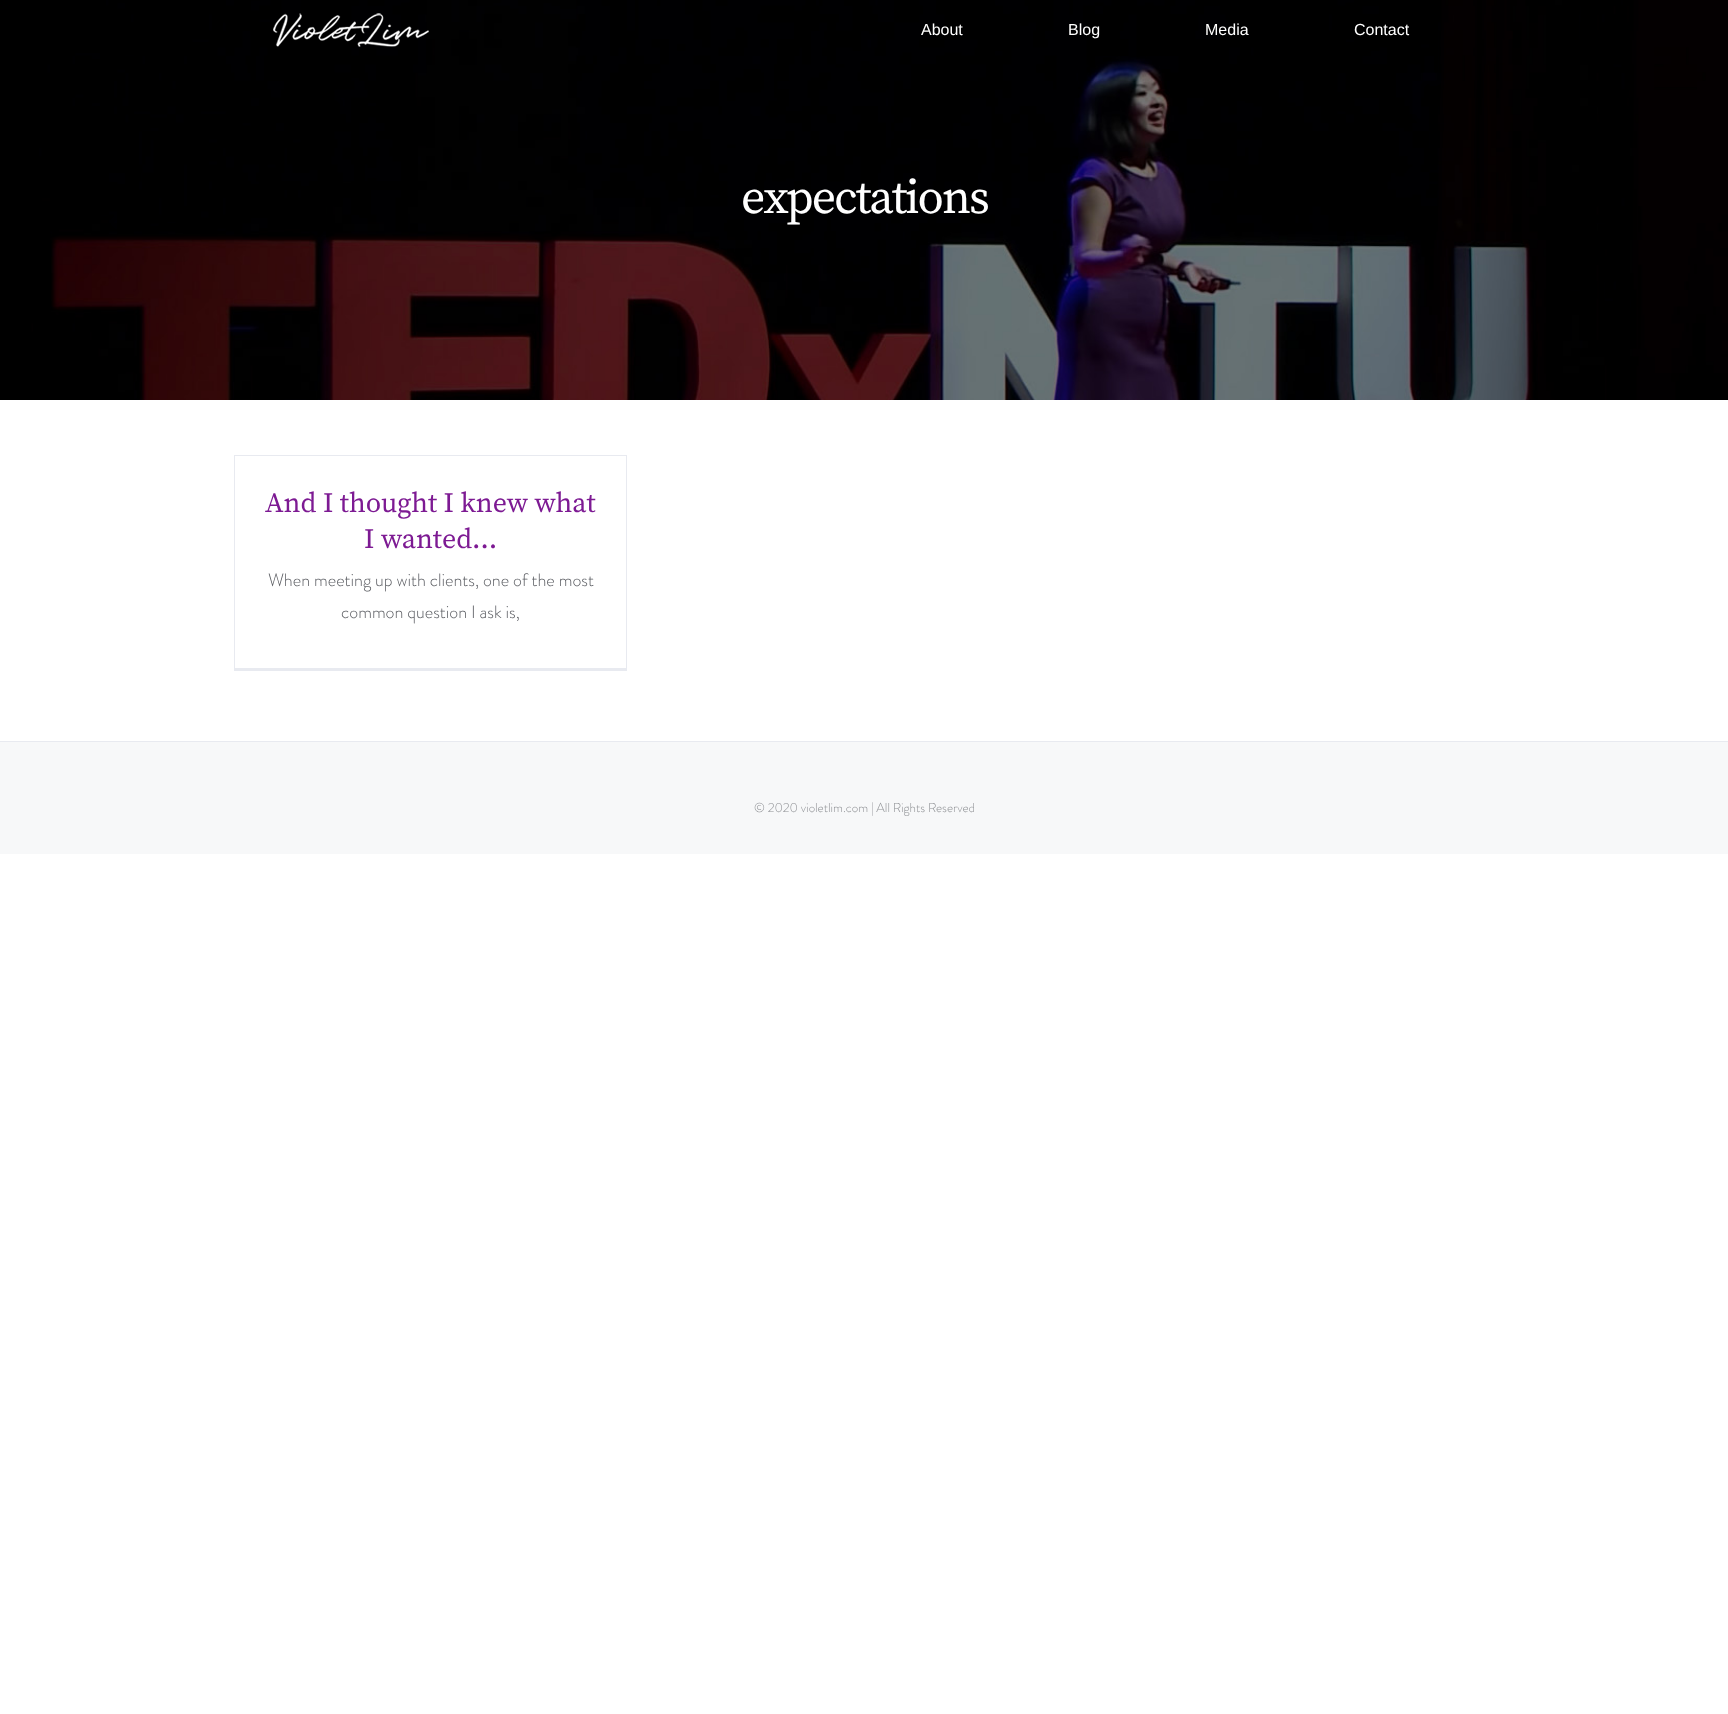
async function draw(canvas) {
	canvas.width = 1728;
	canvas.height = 1714;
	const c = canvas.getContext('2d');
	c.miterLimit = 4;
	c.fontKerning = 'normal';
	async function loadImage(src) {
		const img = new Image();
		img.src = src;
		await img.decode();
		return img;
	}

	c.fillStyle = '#fff';
	c.fillRect(0, 0, 1728, 1714);
	c.drawImage(await loadImage('img2.png'), 0, 0, 1728, 400);
	c.drawImage(await loadImage('img1.png'), 273, 13, 156, 34);
	c.font = '16px Liberation Sans';
	for (const [text, x, y] of [
		['About', 921, 35],
		['Blog', 1068, 35],
		['Media', 1205, 35],
		['Contact', 1354, 35],
	]) {
		c.fillText(text, x, y);
	}
	c.letterSpacing = '-2px';
	c.font = '48px Source Serif Pro';
	c.fillText('expectations', 741, 213);
	for (const [x, y, w, h, color] of [
		[234, 455, 393, 1, '#e8eaf0'],
		[626, 455, 1, 216, '#e8eaf0'],
		[234, 668, 393, 3, '#e8eaf0'],
		[234, 455, 1, 216, '#e8eaf0'],
	]) {
		c.fillStyle = color;
		c.fillRect(x, y, w, h);
	}
	c.letterSpacing = '0px';
	c.font = '28px Source Serif Pro';
	c.fillStyle = '#7d1a93';
	c.fillText('And I thought I knew what', 265, 512);
	c.fillText('I wanted…', 364, 548);
	c.font = '300 18px Brandon Grotesque';
	c.fillStyle = '#5d5f64';
	c.fillText('When meeting up with clients, one of the most', 268, 586);
	c.fillText('common question I ask is,', 341, 618);
	c.fillStyle = '#f7f8f9';
	c.fillRect(0, 742, 1728, 112);
	c.fillStyle = '#e8eaf0';
	c.fillRect(0, 741, 1728, 1);
	c.font = '300 13px Brandon Grotesque';
	c.fillStyle = '#8f9195';
	c.fillText('© 2020 violetlim.com | All Rights Reserved', 754, 812);
}

draw(document.querySelector('canvas'));
